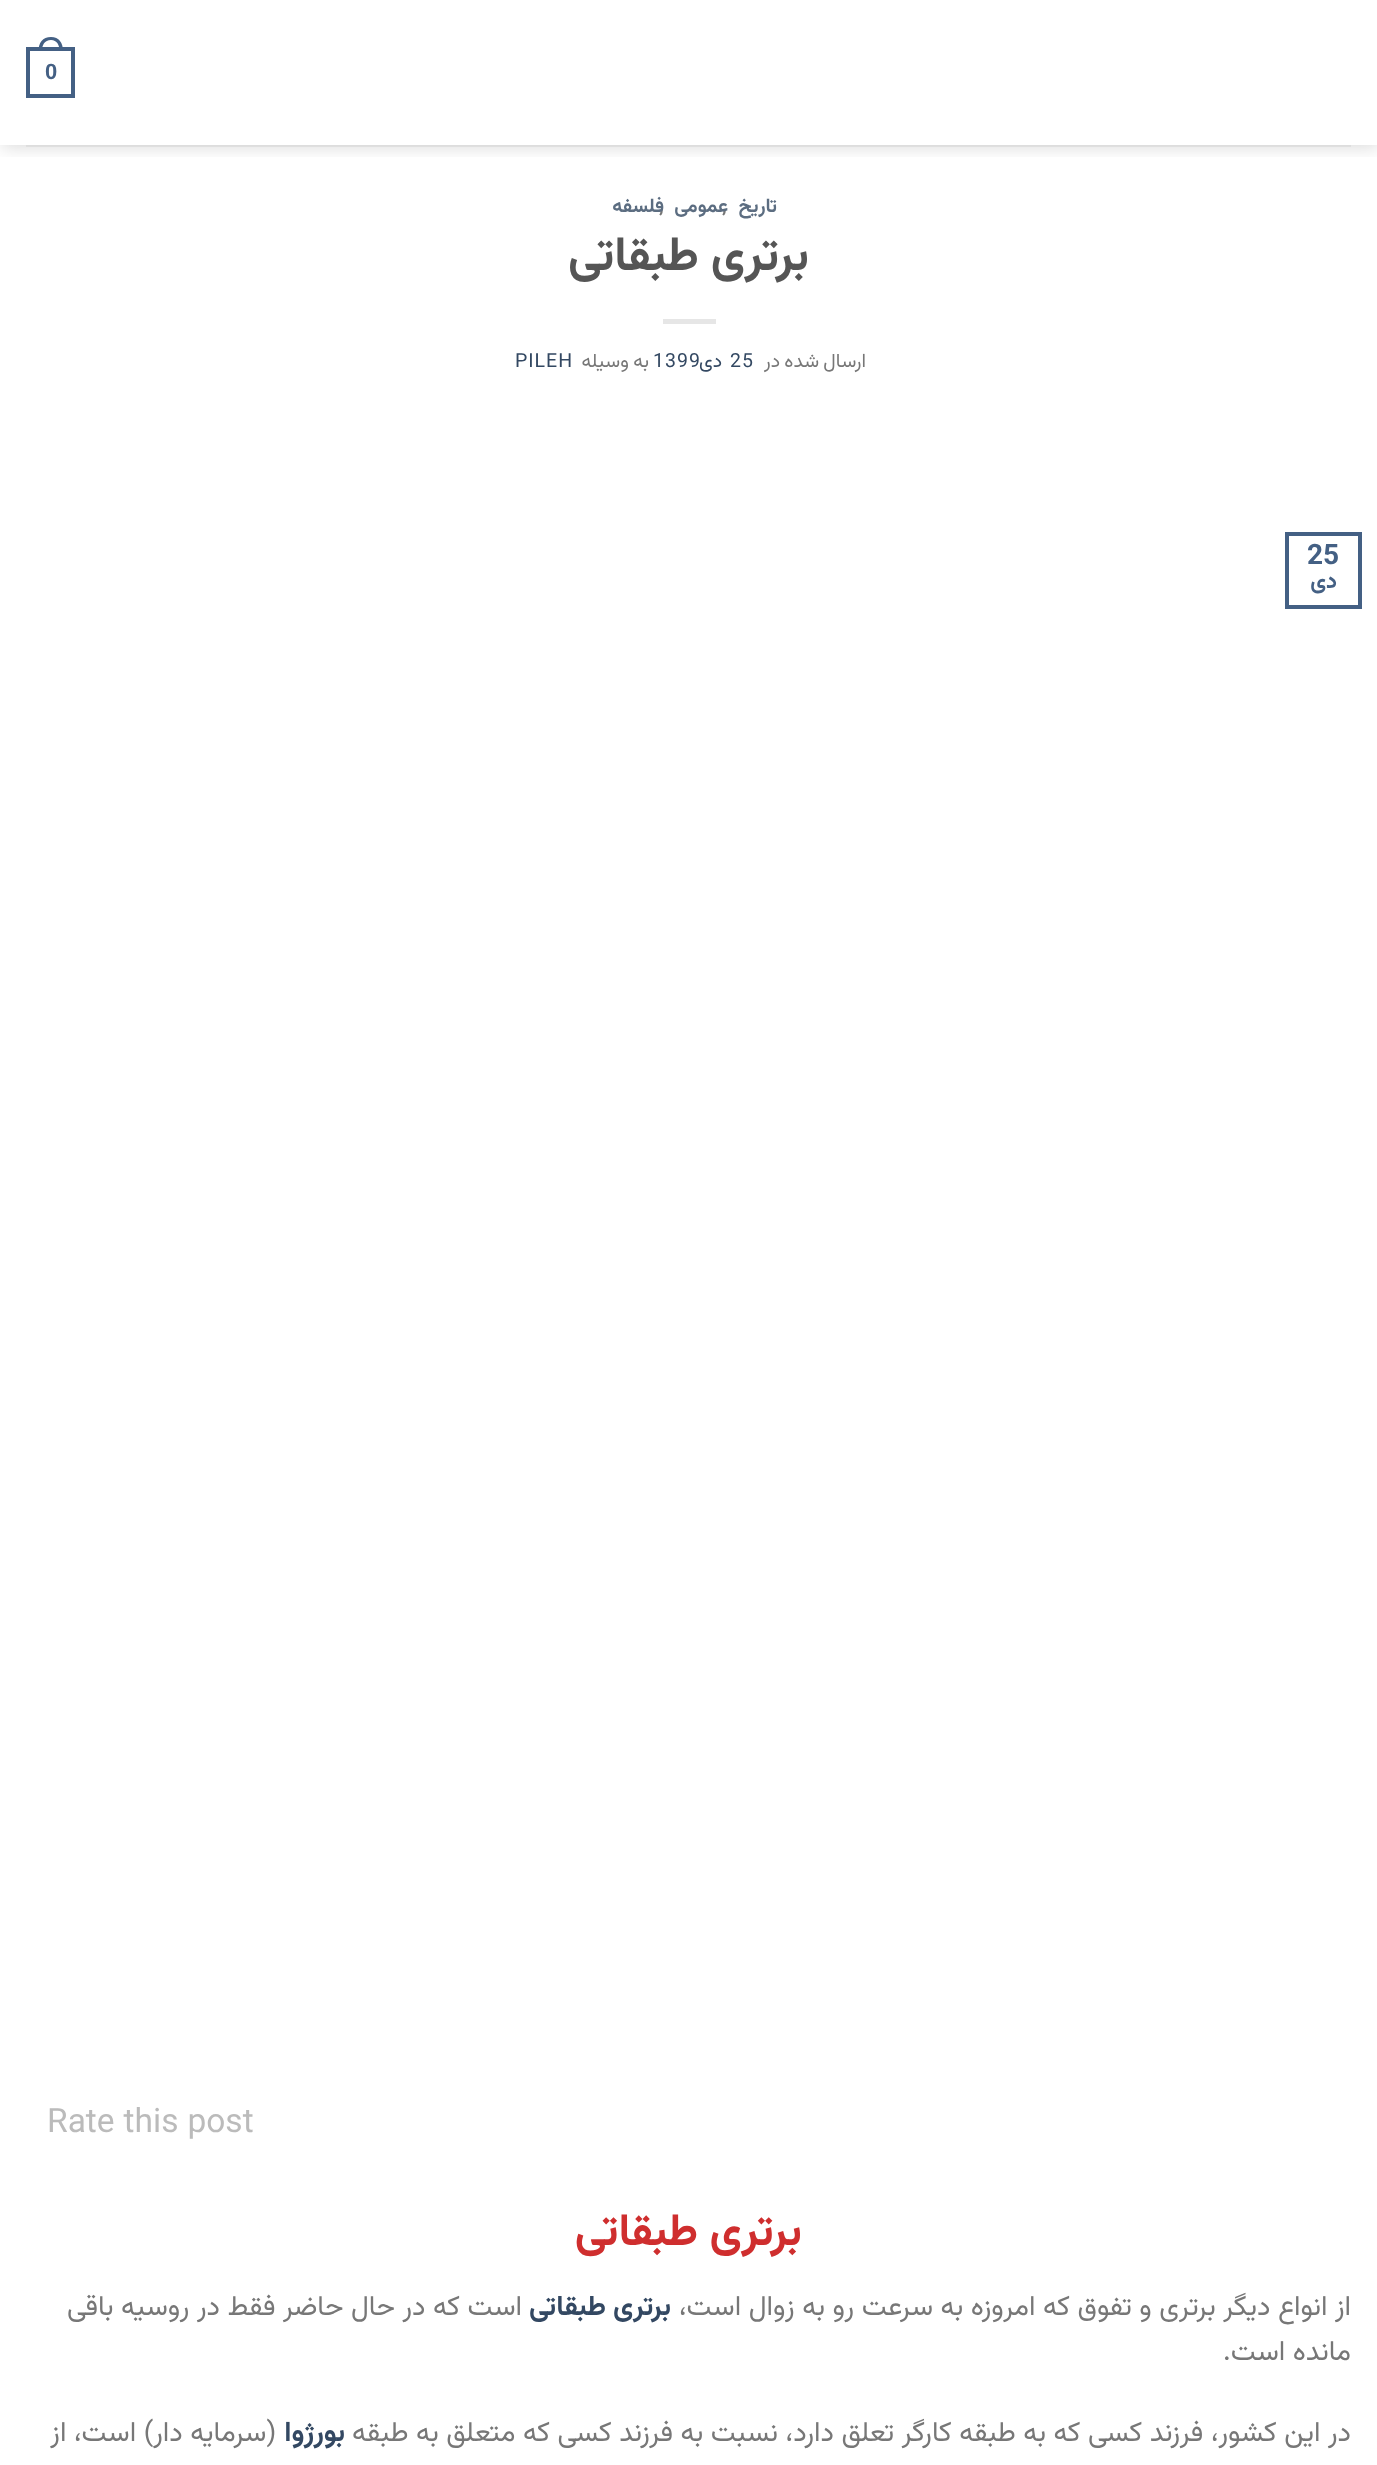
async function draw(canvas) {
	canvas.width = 1377;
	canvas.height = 2465;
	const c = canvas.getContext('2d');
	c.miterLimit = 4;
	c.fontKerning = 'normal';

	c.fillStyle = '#fff';
	c.fillRect(0, 0, 1377, 2465);
	c.save();
	c.beginPath();
	c.rect(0, 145, 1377, 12);
	c.clip();
	c.fillStyle = '#00000026';
	c.filter = 'blur(9px)';
	c.beginPath();
	c.rect(2, 2, 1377, 145);
	c.fill();
	c.filter = 'none';
	c.restore();
	c.strokeStyle = '#446084';
	c.lineWidth = 4;
	c.strokeRect(28, 49, 45, 47);
	c.fillStyle = '#446084';
	c.beginPath();
	c.moveTo(51, 37);
	c.bezierCurveTo(59, 37, 63, 43, 63, 51);
	c.lineTo(38.5, 51);
	c.bezierCurveTo(38.5, 43, 42.5, 37, 51, 37);
	c.closePath();
	c.moveTo(51, 40);
	c.bezierCurveTo(57, 40, 59.5, 45, 59.5, 51);
	c.lineTo(42, 51);
	c.bezierCurveTo(42, 45, 44.5, 40, 51, 40);
	c.closePath();
	c.fill('evenodd');
	c.font = 'bold 22px Liberation Sans';
	c.fillText('0', 45, 79);
	c.fillStyle = '#7777771a';
	c.fillRect(26, 145, 1325, 2);
	c.letterSpacing = '1px';
	c.direction = 'rtl';
	c.font = 'bold 19.5px Vazirmatn';
	c.fillStyle = '#5c6d81';
	c.fillText('تاریخ', 777, 212);
	c.direction = 'ltr';
	c.fillStyle = '#777';
	c.fillText(',', 722, 212);
	c.direction = 'rtl';
	c.fillStyle = '#5c6d81';
	c.fillText('عمومی', 728, 212);
	c.direction = 'ltr';
	c.fillStyle = '#777';
	c.fillText(',', 659, 212);
	c.direction = 'rtl';
	c.fillStyle = '#5c6d81';
	c.fillText('فلسفه', 664, 212);
	c.letterSpacing = '0px';
	c.font = 'bold 47.5px Vazirmatn';
	c.fillStyle = '#555';
	c.fillText('برتری طبقاتی', 809, 270);
	c.fillStyle = '#e6e6e6';
	c.fillRect(663, 319, 53, 5);
	c.letterSpacing = '1px';
	c.wordSpacing = '-1px';
	c.font = '19.5px Vazirmatn';
	c.fillStyle = '#777';
	c.fillText('ارسال شده در', 866, 367);
	c.wordSpacing = '0px';
	c.direction = 'ltr';
	c.fillStyle = '#334862';
	c.fillText('25', 730, 367);
	c.fillText('1399', 653, 367);
	c.direction = 'rtl';
	c.fillText('دی', 722, 367);
	c.wordSpacing = '-1px';
	c.fillStyle = '#777';
	c.fillText('به وسیله', 649, 367);
	c.wordSpacing = '0px';
	c.direction = 'ltr';
	c.fillStyle = '#334862';
	c.fillText('PILEH', 515, 367);
	c.strokeRect(1287, 534, 73, 73);
	c.letterSpacing = '0px';
	c.font = 'bold 28px Vazirmatn';
	c.fillStyle = '#446084';
	c.fillText('25', 1307, 564);
	c.direction = 'rtl';
	c.font = 'bold 22px Vazirmatn';
	c.fillText('دی', 1337, 588);
	c.direction = 'ltr';
	c.font = '33.5px Vazirmatn';
	c.fillStyle = '#bbb';
	c.fillText('Rate this post', 47, 2132);
	c.direction = 'rtl';
	c.font = 'bold 44.75px Vazirmatn';
	c.fillStyle = '#cf2e2e';
	c.fillText('برتری طبقاتی', 802, 2245);
	c.font = '28px Vazirmatn';
	c.fillStyle = '#777';
	c.fillText('از انواع دیگر برتری و تفوق که امروزه به سرعت رو به زوال است،', 1351, 2315);
	c.font = 'bold 28px Vazirmatn';
	c.fillStyle = '#334862';
	c.fillText('برتری طبقاتی', 671, 2315);
	c.font = '28px Vazirmatn';
	c.fillStyle = '#777';
	for (const [text, x, y] of [
		['است که در حال حاضر فقط در روسیه باقی', 522, 2315],
		['مانده است.', 1351, 2360],
		['در این کشور، فرزند کسی که به طبقه کارگر تعلق دارد، نسبت به فرزند کسی که متعلق به طبقه', 1351, 2441],
	]) {
		c.fillText(text, x, y);
	}
	c.font = 'bold 28px Vazirmatn';
	c.fillStyle = '#334862';
	c.fillText('بورژوا', 345, 2441);
	c.font = '28px Vazirmatn';
	c.fillStyle = '#777';
	c.fillText('(سرمایه دار) است، از', 276, 2441);
}

draw(document.querySelector('canvas'));
